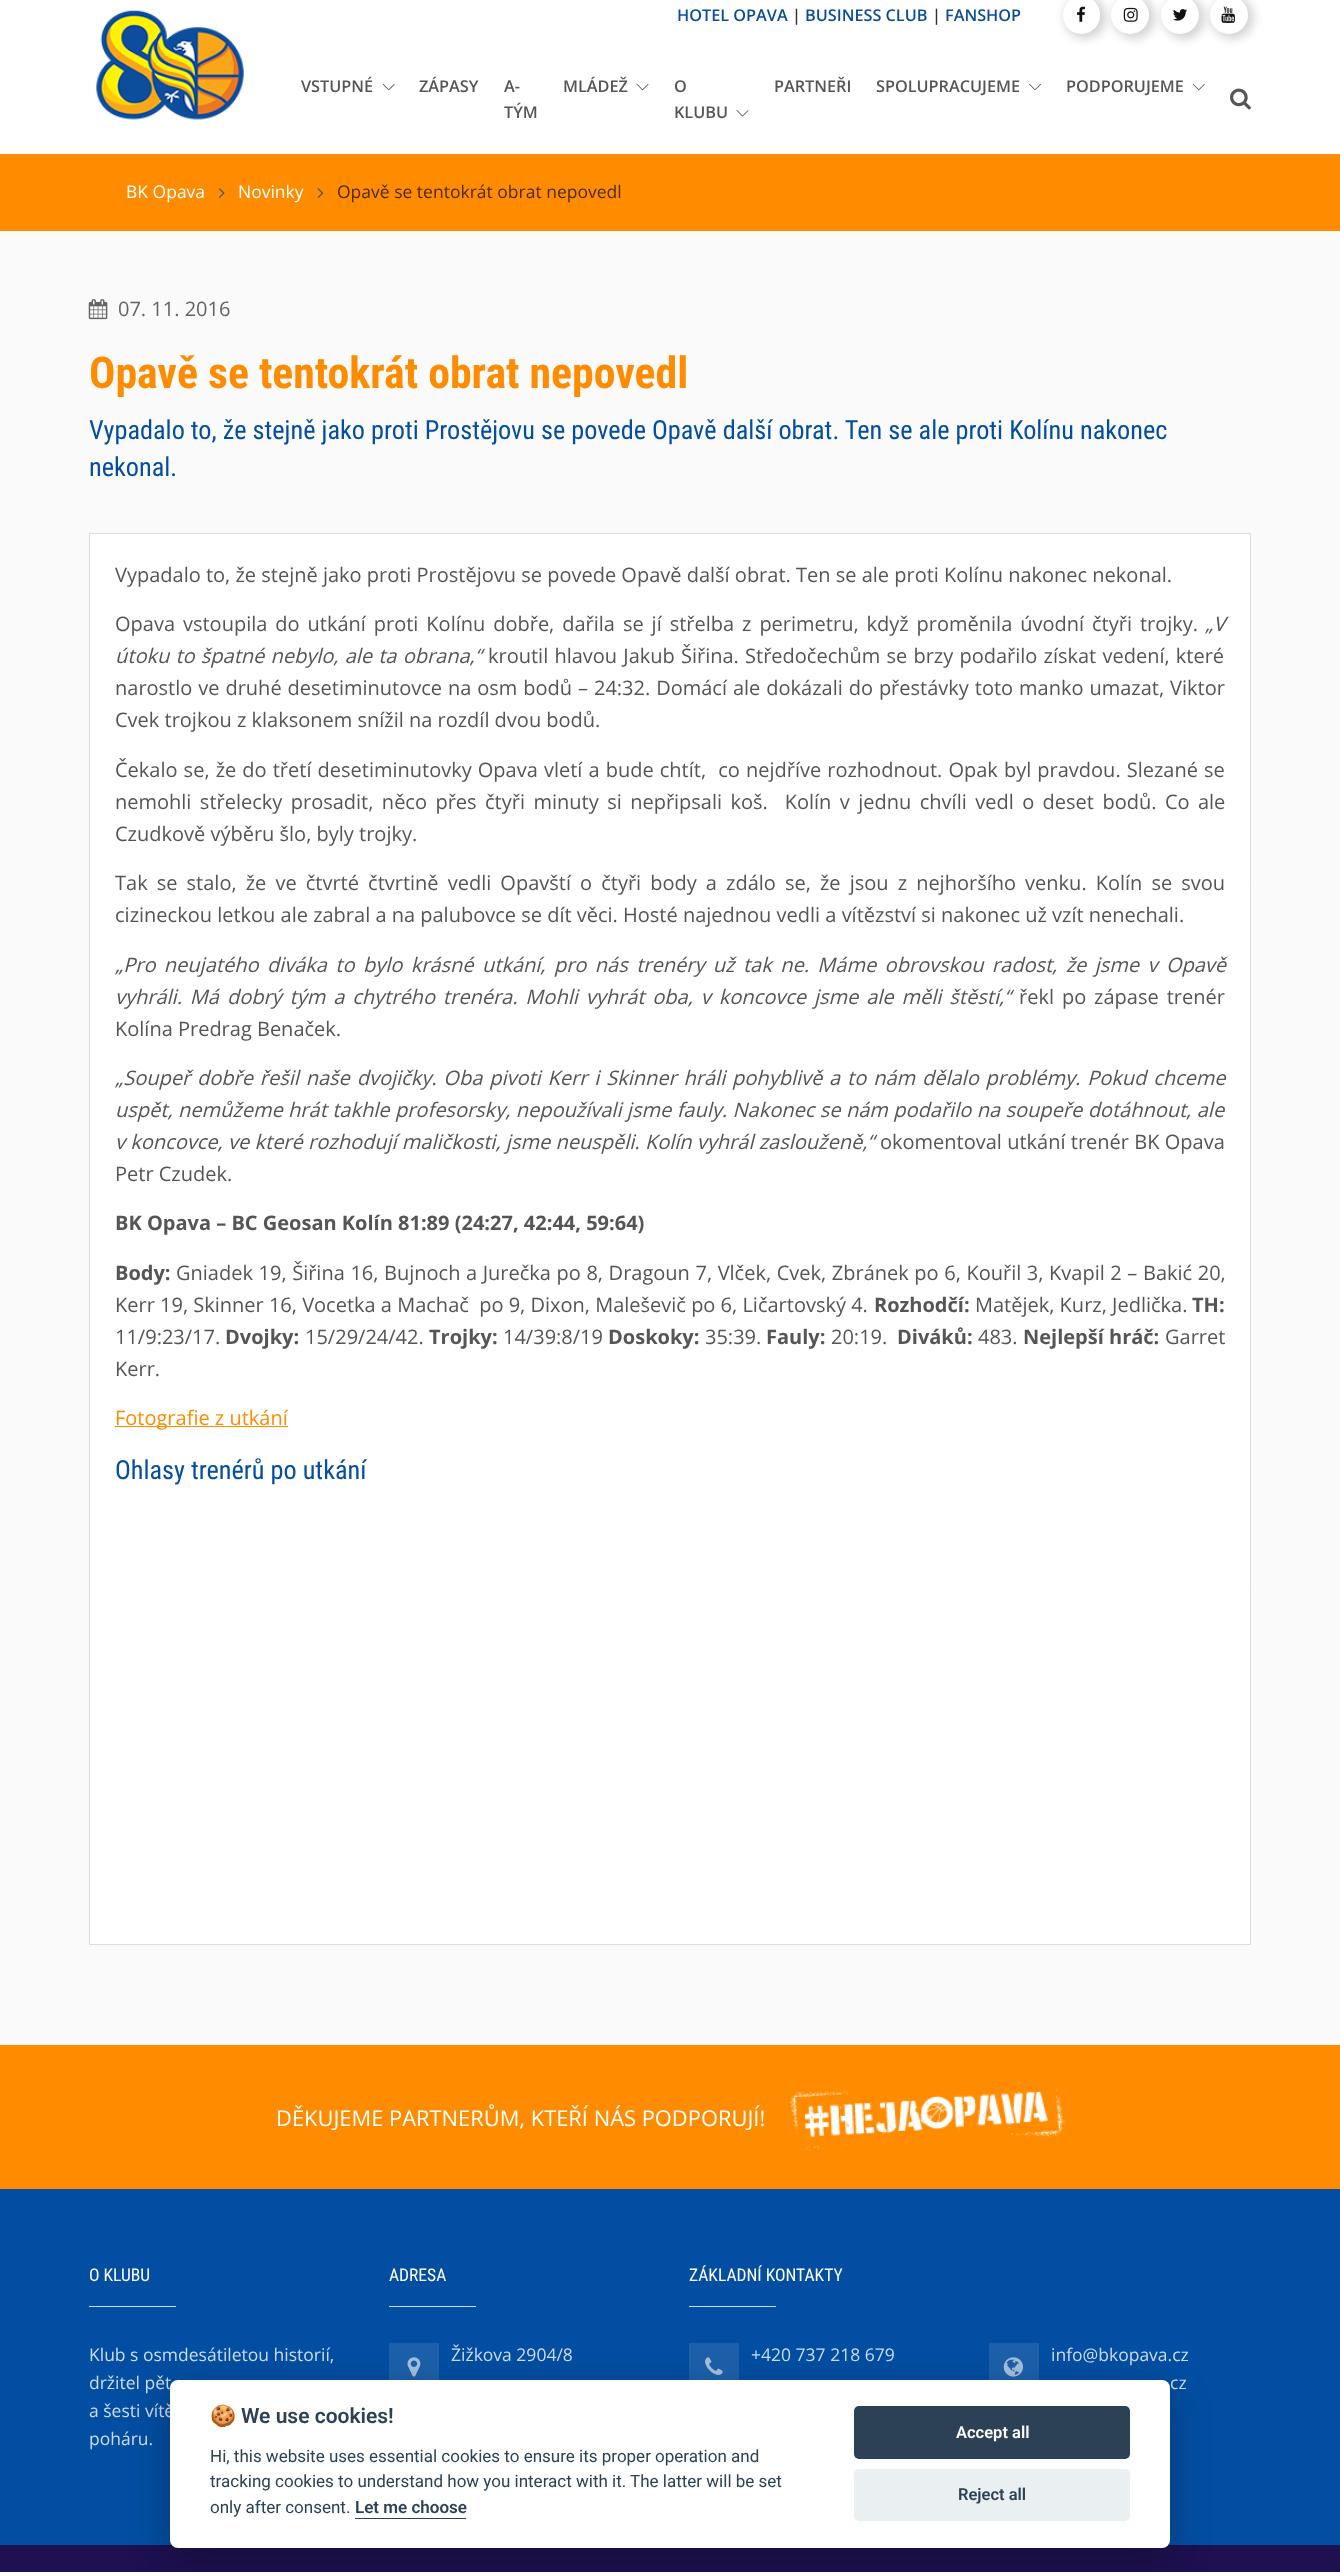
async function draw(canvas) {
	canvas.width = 1340;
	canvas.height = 2572;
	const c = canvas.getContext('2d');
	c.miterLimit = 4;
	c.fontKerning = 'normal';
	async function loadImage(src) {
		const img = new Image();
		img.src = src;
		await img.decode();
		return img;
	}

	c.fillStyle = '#fff';
	c.fillRect(0, 0, 1340, 2572);
	c.drawImage(await loadImage('img1.png'), 96, 10, 148, 110);
	c.font = '600 16.25px Open Sans';
	c.fillStyle = '#0a4e9b';
	c.fillText('HOTEL OPAVA', 677, 21);
	c.fillStyle = '#333';
	c.fillText('|', 792, 21);
	c.fillStyle = '#0a4e9b';
	c.fillText('BUSINESS CLUB', 805, 21);
	c.fillStyle = '#333';
	c.fillText('|', 932, 21);
	c.fillStyle = '#0a4e9b';
	c.fillText('FANSHOP', 945, 21);
	c.fillStyle = '#0000002b';
	c.filter = 'blur(5px)';
	c.beginPath();
	c.roundRect(1064, -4, 42, 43, 21);
	c.fill();
	c.filter = 'none';
	c.fillStyle = '#fff';
	c.beginPath();
	c.roundRect(1063, -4, 37, 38, 18.5);
	c.fill();
	c.drawImage(await loadImage('img2.png'), 1077, 6, 8, 16);
	c.fillStyle = '#0000002b';
	c.filter = 'blur(5px)';
	c.beginPath();
	c.roundRect(1113, -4, 42, 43, 21);
	c.fill();
	c.filter = 'none';
	c.fillStyle = '#fff';
	c.beginPath();
	c.arc(1130, 15, 19, 0, 2 * Math.PI);
	c.fill();
	c.drawImage(await loadImage('img3.png'), 1123, 7, 15, 15);
	c.fillStyle = '#0000002b';
	c.filter = 'blur(5px)';
	c.beginPath();
	c.roundRect(1163, -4, 42, 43, 21);
	c.fill();
	c.filter = 'none';
	c.fillStyle = '#fff';
	c.beginPath();
	c.arc(1180, 15, 19, 0, 2 * Math.PI);
	c.fill();
	c.drawImage(await loadImage('img4.png'), 1173, 9, 14, 12);
	c.fillStyle = '#0000002b';
	c.filter = 'blur(5px)';
	c.beginPath();
	c.roundRect(1211, -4, 43, 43, 21.5);
	c.fill();
	c.filter = 'none';
	c.fillStyle = '#fff';
	c.beginPath();
	c.arc(1229, 15, 19, 0, 2 * Math.PI);
	c.fill();
	c.drawImage(await loadImage('img5.png'), 1221, 6, 14, 17);
	c.fillStyle = '#555';
	c.fillText('VSTUPNÉ', 301, 92);
	c.drawImage(await loadImage('img6.png'), 382, 83, 13, 8);
	for (const [text, x, y] of [
		['ZÁPASY', 419, 92],
		['A-', 504, 92],
		['TÝM', 504, 118],
		['MLÁDEŽ', 563, 92],
	]) {
		c.fillText(text, x, y);
	}
	c.drawImage(await loadImage('img7.png'), 636, 83, 13, 8);
	c.fillText('O', 674, 92);
	c.fillText('KLUBU', 674, 118);
	c.drawImage(await loadImage('img8.png'), 736, 110, 13, 7);
	c.fillText('PARTNEŘI', 774, 92);
	c.fillText('SPOLUPRACUJEME', 876, 92);
	c.drawImage(await loadImage('img9.png'), 1029, 83, 12, 8);
	c.fillText('PODPORUJEME', 1066, 92);
	c.drawImage(await loadImage('img6.png'), 1192, 83, 13, 8);
	c.drawImage(await loadImage('img10.png'), 1230, 88, 21, 22);
	c.fillStyle = '#ff8c00';
	c.fillRect(0, 154, 1340, 77);
	c.font = '17.5px Open Sans';
	c.fillStyle = '#fff';
	c.fillText('BK Opava', 126, 198);
	c.drawImage(await loadImage('img11.png'), 218, 188, 7, 10);
	c.fillText('Novinky', 238, 198);
	c.drawImage(await loadImage('img12.png'), 317, 188, 7, 10);
	c.fillStyle = '#4d2a00';
	c.fillText('Opavě se tentokrát obrat nepovedl', 337, 198);
	c.fillStyle = '#fafafa';
	c.fillRect(0, 231, 1340, 1814);
	c.drawImage(await loadImage('img13.png'), 88, 299, 20, 21);
	c.font = '20px Open Sans';
	c.fillStyle = '#646464';
	c.fillText('07. 11. 2016', 118, 316);
	c.font = 'bold 43.75px Roboto Condensed';
	c.fillStyle = '#ff8c00';
	c.fillText('Opavě se tentokrát obrat nepovedl', 89, 388);
	c.font = '26.25px Roboto Condensed';
	c.fillStyle = '#034ea2';
	c.fillText('Vypadalo to, že stejně jako proti Prostějovu se povede Opavě další obrat. Ten se ale proti Kolínu nakonec', 89, 439);
	c.fillText('nekonal.', 89, 476);
	c.fillStyle = '#fff';
	c.beginPath();
	c.rect(89.5, 533.5, 1161, 1411);
	c.fill();
	c.strokeStyle = '#ddd';
	c.stroke();
	c.font = '20px Open Sans';
	c.fillStyle = '#555';
	c.fillText('Vypadalo to, že stejně jako proti Prostějovu se povede Opavě další obrat. Ten se ale proti Kolínu nakonec nekonal.', 115, 582);
	c.wordSpacing = '2.75px';
	c.fillText('Opava vstoupila do utkání proti Kolínu dobře, dařila se jí střelba z perimetru, když proměnila úvodní čtyři trojky.', 115, 631);
	c.wordSpacing = '0px';
	c.font = 'italic 20px Open Sans';
	c.fillText('„V', 1205, 631);
	c.wordSpacing = '1px';
	c.fillText('útoku to špatné nebylo, ale ta obrana,“', 115, 663);
	c.font = '20px Open Sans';
	c.fillText('kroutil hlavou Jakub Šiřina. Středočechům se brzy podařilo získat vedení, které', 488, 663);
	c.wordSpacing = '0.75px';
	c.fillText('narostlo ve druhé desetiminutovce na osm bodů – 24:32. Domácí ale dokázali do přestávky toto manko umazat, Viktor', 115, 695);
	c.wordSpacing = '0px';
	c.fillText('Cvek trojkou z klaksonem snížil na rozdíl dvou bodů.', 115, 727);
	c.wordSpacing = '0.9px';
	c.fillText('Čekalo se, že do třetí desetiminutovky Opava vletí a bude chtít,  co nejdříve rozhodnout. Opak byl pravdou. Slezané se', 115, 777);
	c.wordSpacing = '3.25px';
	c.fillText('nemohli střelecky prosadit, něco přes čtyři minuty si nepřipsali koš.  Kolín v jednu chvíli vedl o deset bodů. Co ale', 115, 809);
	c.wordSpacing = '0px';
	c.fillText('Czudkově výběru šlo, byly trojky.', 115, 841);
	c.wordSpacing = '3.9px';
	c.fillText('Tak se stalo, že ve čtvrté čtvrtině vedli Opavští o čtyři body a zdálo se, že jsou z nejhoršího venku. Kolín se svou', 115, 890);
	c.wordSpacing = '0px';
	c.fillText('cizineckou letkou ale zabral a na palubovce se dít věci. Hosté najednou vedli a vítězství si nakonec už vzít nenechali.', 115, 922);
	c.wordSpacing = '3.25px';
	c.font = 'italic 20px Open Sans';
	c.fillText('„Pro neujatého diváka to bylo krásné utkání, pro nás trenéry už tak ne. Máme obrovskou radost, že jsme v Opavě', 115, 972);
	c.wordSpacing = '2.75px';
	c.fillText('vyhráli. Má dobrý tým a chytrého trenéra. Mohli vyhrát oba, v koncovce jsme ale měli štěstí,“', 115, 1004);
	c.font = '20px Open Sans';
	c.fillText('řekl po zápase trenér', 1019, 1004);
	c.wordSpacing = '0px';
	c.fillText('Kolína Predrag Benaček.', 115, 1036);
	c.wordSpacing = '1.7px';
	c.font = 'italic 20px Open Sans';
	c.fillText('„Soupeř dobře řešil naše dvojičky. Oba pivoti Kerr i Skinner hráli pohyblivě a to nám dělalo problémy. Pokud chceme', 115, 1085);
	c.wordSpacing = '0.25px';
	c.fillText('uspět, nemůžeme hrát takhle profesorsky, nepoužívali jsme fauly. Nakonec se nám podařilo na soupeře dotáhnout, ale', 115, 1117);
	c.wordSpacing = '0.1px';
	c.fillText('v koncovce, ve které rozhodují maličkosti, jsme neuspěli. Kolín vyhrál zaslouženě,“', 115, 1149);
	c.font = '20px Open Sans';
	c.fillText('okomentoval utkání trenér BK Opava', 880, 1149);
	c.wordSpacing = '0px';
	c.fillText('Petr Czudek.', 115, 1181);
	c.font = 'bold 20px Open Sans';
	c.fillText('BK Opava – BC Geosan Kolín 81:89 (24:27, 42:44, 59:64)', 115, 1230);
	c.fillText('Body:', 115, 1280);
	c.wordSpacing = '0.4px';
	c.font = '20px Open Sans';
	c.fillText('Gniadek 19, Šiřina 16, Bujnoch a Jurečka po 8, Dragoun 7, Vlček, Cvek, Zbránek po 6, Kouřil 3, Kvapil 2 – Bakić 20,', 176, 1280);
	c.wordSpacing = '0px';
	c.fillText('Kerr 19, Skinner 16, Vocetka a Machač  po 9, Dixon, Maleševič po 6, Ličartovský 4.', 115, 1312);
	c.font = 'bold 20px Open Sans';
	c.fillText('Rozhodčí:', 874, 1312);
	c.font = '20px Open Sans';
	c.fillText('Matějek, Kurz, Jedlička.', 975, 1312);
	c.font = 'bold 20px Open Sans';
	c.fillText('TH:', 1192, 1312);
	c.font = '20px Open Sans';
	c.fillText('11/9:23/17.', 115, 1344);
	c.font = 'bold 20px Open Sans';
	c.fillText('Dvojky:', 225, 1344);
	c.font = '20px Open Sans';
	c.fillText('15/29/24/42.', 305, 1344);
	c.font = 'bold 20px Open Sans';
	c.fillText('Trojky:', 429, 1344);
	c.font = '20px Open Sans';
	c.fillText('14/39:8/19', 503, 1344);
	c.font = 'bold 20px Open Sans';
	c.fillText('Doskoky:', 608, 1344);
	c.font = '20px Open Sans';
	c.fillText('35:39.', 705, 1344);
	c.font = 'bold 20px Open Sans';
	c.fillText('Fauly:', 766, 1344);
	c.font = '20px Open Sans';
	c.fillText('20:19.', 831, 1344);
	c.font = 'bold 20px Open Sans';
	c.fillText('Diváků:', 897, 1344);
	c.font = '20px Open Sans';
	c.fillText('483.', 978, 1344);
	c.font = 'bold 20px Open Sans';
	c.fillText('Nejlepší hráč:', 1023, 1344);
	c.font = '20px Open Sans';
	c.fillText('Garret', 1165, 1344);
	c.fillText('Kerr.', 115, 1376);
	c.fillStyle = '#ff8c00';
	c.fillRect(115, 1426, 173, 1);
	c.fillText('Fotografie z utkání', 115, 1425);
	c.font = '26.25px Roboto Condensed';
	c.fillStyle = '#034ea2';
	c.fillText('Ohlasy trenérů po utkání', 115, 1479);
	c.fillStyle = '#ff8c00';
	c.fillRect(0, 2045, 1340, 144);
	c.font = '21.9px Open Sans';
	c.fillStyle = '#fff';
	c.fillText('DĚKUJEME PARTNERŮM, KTEŘÍ NÁS PODPORUJÍ!', 276, 2126);
	c.drawImage(await loadImage('img14.png'), 790, 2082, 275, 69);
	c.fillStyle = '#034ea2';
	c.fillRect(0, 2189, 1340, 356);
	c.font = '17.5px Roboto Condensed';
	c.fillStyle = '#fff';
	c.fillText('O KLUBU', 89, 2281);
	c.fillStyle = '#cddcec';
	c.fillRect(89, 2306, 87, 1);
	c.font = '17.5px Open Sans';
	for (const [text, x, y] of [
		['Klub s osmdesátiletou historií,', 89, 2361],
		['držitel pět', 89, 2389],
		['a šesti vítě', 89, 2417],
		['poháru.', 89, 2445],
	]) {
		c.fillText(text, x, y);
	}
	c.font = '17.5px Roboto Condensed';
	c.fillStyle = '#fff';
	c.fillText('ADRESA', 389, 2281);
	c.fillStyle = '#cddcec';
	c.fillRect(389, 2306, 87, 1);
	c.fillStyle = '#1c60ab';
	c.fillRect(389, 2343, 50, 37);
	c.drawImage(await loadImage('img15.png'), 407, 2357, 14, 20);
	c.font = '17.5px Open Sans';
	c.fillStyle = '#cddcec';
	c.fillText('Žižkova 2904/8', 451, 2361);
	c.font = '17.5px Roboto Condensed';
	c.fillStyle = '#fff';
	c.fillText('ZÁKLADNÍ KONTAKTY', 689, 2281);
	c.fillStyle = '#cddcec';
	c.fillRect(689, 2306, 87, 1);
	c.fillStyle = '#1c60ab';
	c.fillRect(689, 2343, 50, 37);
	c.drawImage(await loadImage('img16.png'), 705, 2357, 18, 18);
	c.font = '17.5px Open Sans';
	c.fillStyle = '#cddcec';
	c.fillText('+420 737 218 679', 751, 2361);
	c.fillStyle = '#1c60ab';
	c.fillRect(989, 2343, 50, 37);
	c.drawImage(await loadImage('img17.png'), 1003, 2357, 20, 20);
	c.fillStyle = '#cddcec';
	c.fillText('info@bkopava.cz', 1051, 2361);
	c.fillText('cz', 1170, 2389);
	c.fillStyle = '#1e1051';
	c.fillRect(0, 2545, 1340, 27);
	c.fillStyle = '#02020347';
	c.filter = 'blur(19px)';
	c.beginPath();
	c.roundRect(170, 2393, 1000, 167, 8);
	c.fill();
	c.filter = 'none';
	c.fillStyle = '#fff';
	c.beginPath();
	c.roundRect(170, 2380, 1000, 168, 8);
	c.fill();
	c.font = 'bold 21px Noto Color Emoji';
	c.fillStyle = '#2d4156';
	c.fillText('🍪', 210, 2423);
	c.font = '600 21px Roboto';
	c.fillText('We use cookies!', 241, 2423);
	c.font = '17px Roboto';
	for (const [text, x, y] of [
		['Hi, this website uses essential cookies to ensure its proper operation and', 210, 2462],
		['tracking cookies to understand how you interact with it. The latter will be set', 210, 2487],
		['only after consent.', 210, 2513],
	]) {
		c.fillText(text, x, y);
	}
	c.font = '600 17px Roboto';
	c.fillText('Let me choose', 355, 2513);
	c.fillRect(355, 2518, 111, 1);
	c.beginPath();
	c.roundRect(854, 2406, 276, 53, 5);
	c.fill();
	c.font = '600 16.5px Roboto';
	c.fillStyle = '#fff';
	c.fillText('Accept all', 956, 2438);
	c.fillStyle = '#eaeff2';
	c.beginPath();
	c.roundRect(854, 2469, 276, 52, 5);
	c.fill();
	c.fillStyle = '#2d4156';
	c.fillText('Reject all', 958, 2500);
}

draw(document.querySelector('canvas'));
